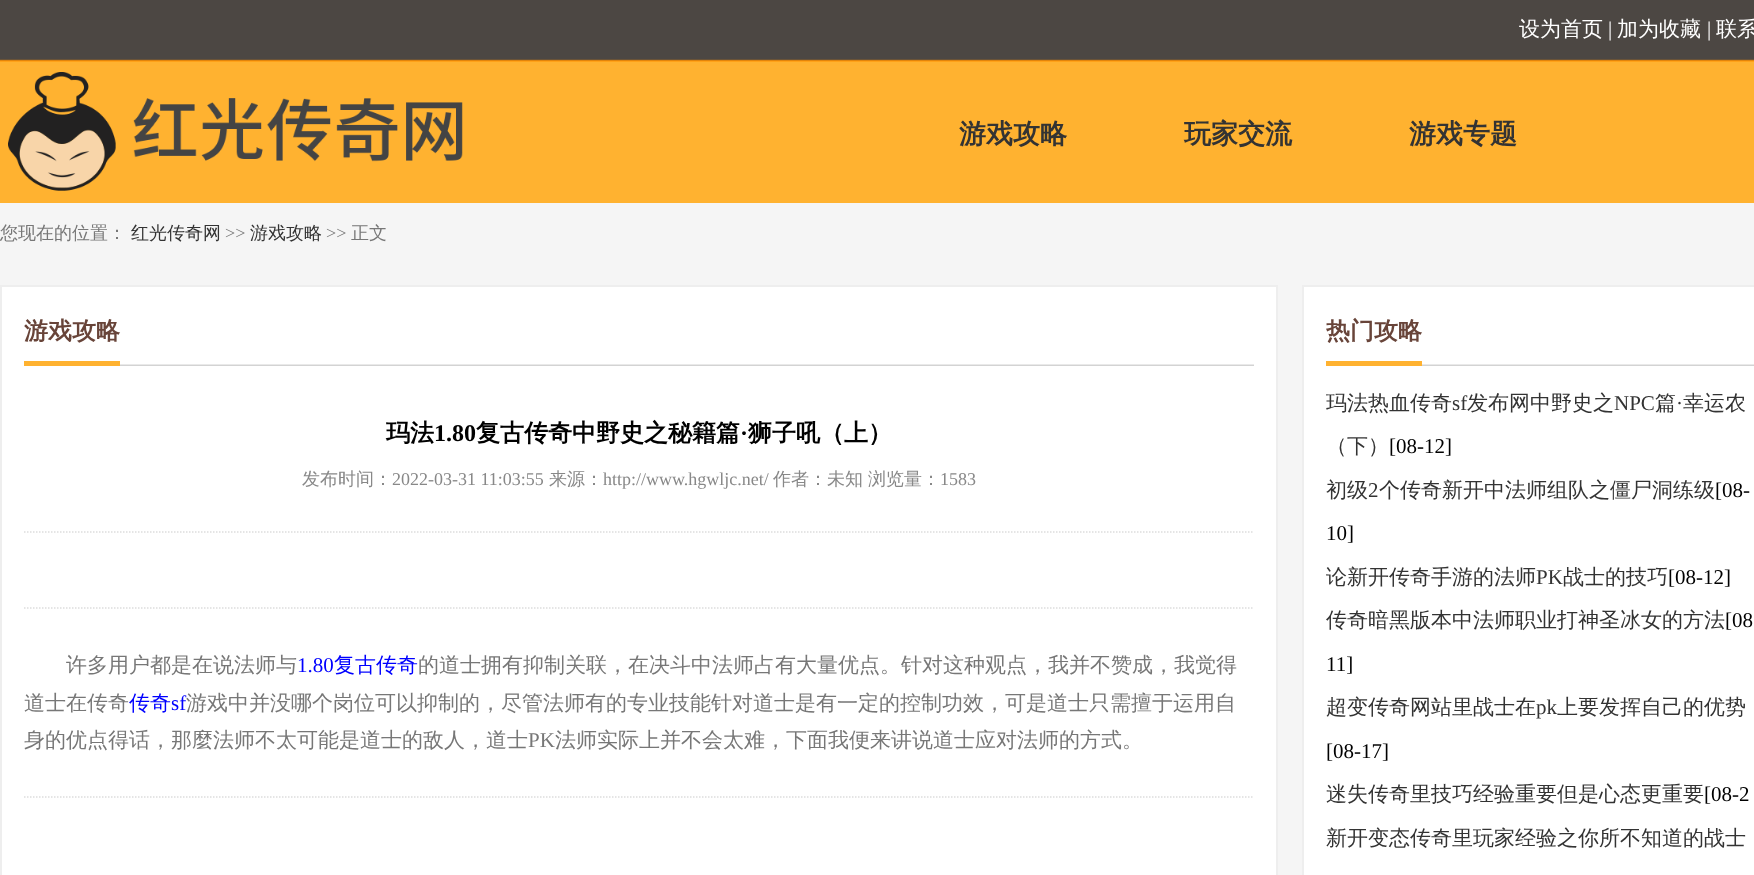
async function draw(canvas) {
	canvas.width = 1754;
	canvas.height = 875;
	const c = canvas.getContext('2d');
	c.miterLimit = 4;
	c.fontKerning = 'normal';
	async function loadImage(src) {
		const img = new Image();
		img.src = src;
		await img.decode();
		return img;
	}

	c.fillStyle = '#f5f5f5';
	c.fillRect(0, 0, 1754, 875);
	c.drawImage(await loadImage('img1.png'), 0, 0, 1754, 203);
	c.font = '500 21px WenQuanYi Zen Hei';
	c.fillStyle = '#fff';
	c.fillText('设为首页', 1519, 36);
	c.font = '21px Liberation Serif';
	c.fillText('|', 1608, 36);
	c.font = '500 21px WenQuanYi Zen Hei';
	c.fillText('加为收藏', 1617, 36);
	c.font = '21px Liberation Serif';
	c.fillText('|', 1707, 36);
	c.font = '500 21px WenQuanYi Zen Hei';
	c.fillText('联系', 1716, 36);
	c.drawImage(await loadImage('img2.png'), 8, 72, 455, 119);
	c.font = 'bold 27px WenQuanYi Zen Hei';
	c.fillStyle = '#333';
	for (const [text, x, y] of [
		['游戏攻略', 959, 143],
		['玩家交流', 1184, 143],
		['游戏专题', 1409, 143],
	]) {
		c.fillText(text, x, y);
	}
	c.font = '500 18px WenQuanYi Zen Hei';
	c.fillStyle = '#777';
	c.fillText('您现在的位置：', 0, 239);
	c.fillStyle = '#333';
	c.fillText('红光传奇网', 131, 239);
	c.font = '18px Liberation Serif';
	c.fillStyle = '#777';
	c.fillText('>>', 225, 239);
	c.font = '500 18px WenQuanYi Zen Hei';
	c.fillStyle = '#333';
	c.fillText('游戏攻略', 250, 239);
	c.font = '18px Liberation Serif';
	c.fillStyle = '#777';
	c.fillText('>>', 326, 239);
	c.font = '500 18px WenQuanYi Zen Hei';
	c.fillText('正文', 351, 239);
	c.fillStyle = '#fff';
	c.beginPath();
	c.rect(1, 286, 1276, 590);
	c.fill();
	c.strokeStyle = '#eee';
	c.lineWidth = 2;
	c.stroke();
	c.font = 'bold 24px WenQuanYi Zen Hei';
	c.fillStyle = '#684439';
	c.fillText('游戏攻略', 24, 339);
	c.drawImage(await loadImage('img3.png'), 120, 364, 1134, 2);
	c.fillStyle = '#ffb230';
	c.fillRect(24, 361, 96, 5);
	c.fillStyle = '#000';
	c.fillText('玛法', 386, 441);
	c.font = 'bold 24px Liberation Serif';
	c.fillText('1.80', 434, 441);
	c.font = 'bold 24px WenQuanYi Zen Hei';
	c.fillText('复古传奇中野史之秘籍篇', 476, 441);
	c.font = 'bold 24px Liberation Serif';
	c.fillText('·', 740, 441);
	c.font = 'bold 24px WenQuanYi Zen Hei';
	c.fillText('狮子吼（上）', 748, 441);
	c.font = '500 18px WenQuanYi Zen Hei';
	c.fillStyle = '#888';
	c.fillText('发布时间：', 302, 485);
	c.font = '18px Liberation Serif';
	c.fillText('2022-03-31 11:03:55', 392, 485);
	c.font = '500 18px WenQuanYi Zen Hei';
	c.fillText('来源：', 549, 485);
	c.font = '18px Liberation Serif';
	c.fillText('http://www.hgwljc.net/', 603, 485);
	c.font = '500 18px WenQuanYi Zen Hei';
	c.fillText('作者：未知', 773, 485);
	c.fillText('浏览量：', 868, 485);
	c.font = '18px Liberation Serif';
	c.fillText('1583', 940, 485);
	c.beginPath();
	c.moveTo(24, 532);
	c.lineTo(1254, 532);
	c.strokeStyle = '#ddd';
	c.lineWidth = 1.5;
	c.setLineDash([1.5, 1.5]);
	c.stroke();
	c.beginPath();
	c.moveTo(24, 608);
	c.lineTo(1254, 608);
	c.stroke();
	c.font = '500 21px WenQuanYi Zen Hei';
	c.fillStyle = '#777';
	c.fillText('许多用户都是在说法师与', 66, 672);
	c.font = '21px Liberation Serif';
	c.fillStyle = '#00f';
	c.fillText('1.80', 297, 672);
	c.font = '500 21px WenQuanYi Zen Hei';
	c.fillText('复古传奇', 334, 672);
	c.fillStyle = '#777';
	c.fillText('的道士拥有抑制关联，在决斗中法师占有大量优点。针对这种观点，我并不赞成，我觉得', 418, 672);
	c.fillText('道士在传奇', 24, 710);
	c.fillStyle = '#00f';
	c.fillText('传奇', 129, 710);
	c.font = '21px Liberation Serif';
	c.fillText('sf', 171, 710);
	c.font = '500 21px WenQuanYi Zen Hei';
	c.fillStyle = '#777';
	c.fillText('游戏中并没哪个岗位可以抑制的，尽管法师有的专业技能针对道士是有一定的控制功效，可是道士只需擅于运用自', 186, 710);
	c.fillText('身的优点得话，那麼法师不太可能是道士的敌人，道士', 24, 747);
	c.font = '21px Liberation Serif';
	c.fillText('PK', 528, 747);
	c.font = '500 21px WenQuanYi Zen Hei';
	c.fillText('法师实际上并不会太难，下面我便来讲说道士应对法师的方式。', 555, 747);
	c.beginPath();
	c.moveTo(24, 797);
	c.lineTo(1254, 797);
	c.stroke();
	c.fillStyle = '#fff';
	c.beginPath();
	c.rect(1303, 286, 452, 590);
	c.fill();
	c.strokeStyle = '#eee';
	c.lineWidth = 2;
	c.setLineDash([]);
	c.stroke();
	c.font = 'bold 24px WenQuanYi Zen Hei';
	c.fillStyle = '#684439';
	c.fillText('热门攻略', 1326, 339);
	c.drawImage(await loadImage('img4.png'), 1422, 364, 332, 2);
	c.fillStyle = '#ffb230';
	c.fillRect(1326, 361, 96, 5);
	c.font = '500 21px WenQuanYi Zen Hei';
	c.fillStyle = '#333';
	c.fillText('玛法热血传奇', 1326, 410);
	c.font = '21px Liberation Serif';
	c.fillText('sf', 1452, 410);
	c.font = '500 21px WenQuanYi Zen Hei';
	c.fillText('发布网中野史之', 1467, 410);
	c.font = '21px Liberation Serif';
	c.fillText('NPC', 1614, 410);
	c.font = '500 21px WenQuanYi Zen Hei';
	c.fillText('篇', 1655, 410);
	c.font = '21px Liberation Serif';
	c.fillText('·', 1676, 410);
	c.font = '500 21px WenQuanYi Zen Hei';
	c.fillText('幸运农', 1683, 410);
	c.fillText('（下）', 1326, 453);
	c.font = '21px Liberation Serif';
	c.fillStyle = '#000';
	c.fillText('[08-12]', 1389, 453);
	c.font = '500 21px WenQuanYi Zen Hei';
	c.fillStyle = '#333';
	c.fillText('初级', 1326, 497);
	c.font = '21px Liberation Serif';
	c.fillText('2', 1368, 497);
	c.font = '500 21px WenQuanYi Zen Hei';
	c.fillText('个传奇新开中法师组队之僵尸洞练级', 1379, 497);
	c.font = '21px Liberation Serif';
	c.fillStyle = '#000';
	c.fillText('[08-', 1715, 497);
	c.fillText('10]', 1326, 540);
	c.font = '500 21px WenQuanYi Zen Hei';
	c.fillStyle = '#333';
	c.fillText('论新开传奇手游的法师', 1326, 584);
	c.font = '21px Liberation Serif';
	c.fillText('PK', 1536, 584);
	c.font = '500 21px WenQuanYi Zen Hei';
	c.fillText('战士的技巧', 1563, 584);
	c.font = '21px Liberation Serif';
	c.fillStyle = '#000';
	c.fillText('[08-12]', 1668, 584);
	c.font = '500 21px WenQuanYi Zen Hei';
	c.fillStyle = '#333';
	c.fillText('传奇暗黑版本中法师职业打神圣冰女的方法', 1326, 627);
	c.font = '21px Liberation Serif';
	c.fillStyle = '#000';
	c.fillText('[08', 1725, 627);
	c.fillText('11]', 1326, 671);
	c.font = '500 21px WenQuanYi Zen Hei';
	c.fillStyle = '#333';
	c.fillText('超变传奇网站里战士在', 1326, 714);
	c.font = '21px Liberation Serif';
	c.fillText('pk', 1536, 714);
	c.font = '500 21px WenQuanYi Zen Hei';
	c.fillText('上要发挥自己的优势', 1557, 714);
	c.font = '21px Liberation Serif';
	c.fillStyle = '#000';
	c.fillText('[08-17]', 1326, 758);
	c.font = '500 21px WenQuanYi Zen Hei';
	c.fillStyle = '#333';
	c.fillText('迷失传奇里技巧经验重要但是心态更重要', 1326, 801);
	c.font = '21px Liberation Serif';
	c.fillStyle = '#000';
	c.fillText('[08-2', 1704, 801);
	c.font = '500 21px WenQuanYi Zen Hei';
	c.fillStyle = '#333';
	c.fillText('新开变态传奇里玩家经验之你所不知道的战士', 1326, 845);
}

draw(document.querySelector('canvas'));
